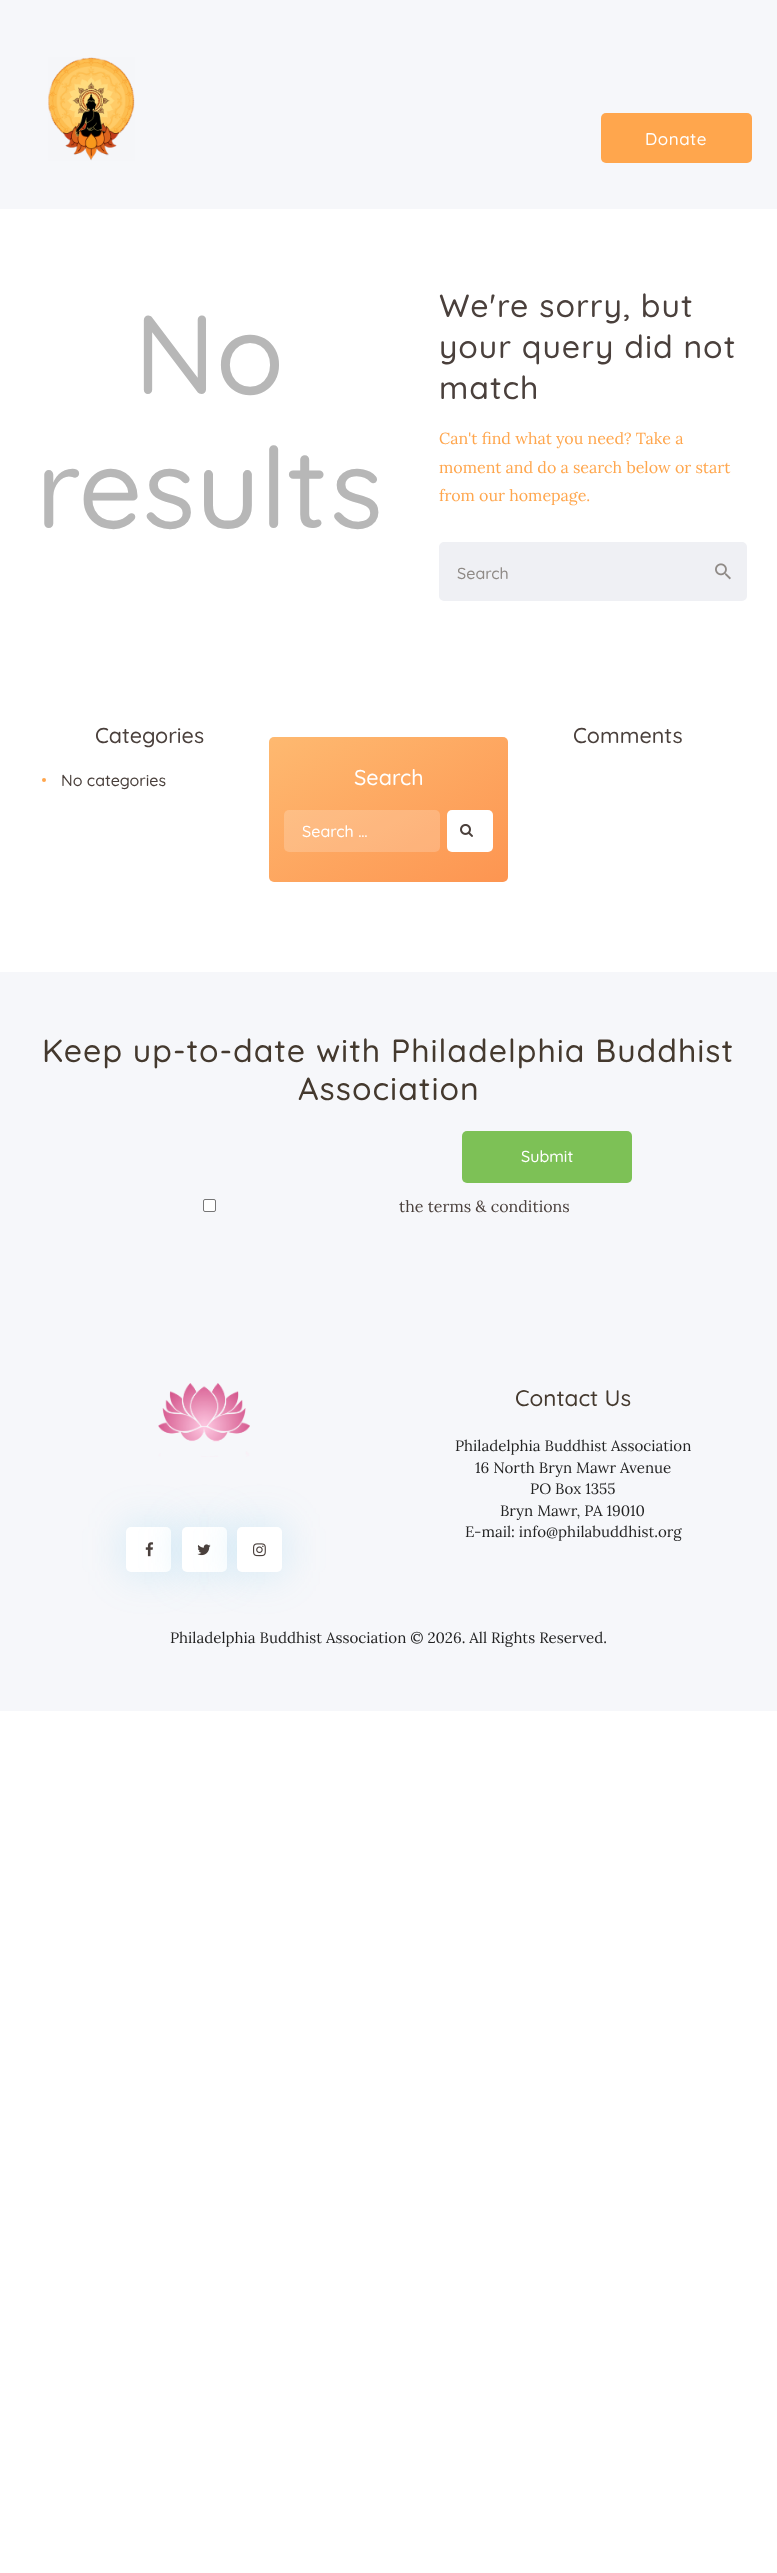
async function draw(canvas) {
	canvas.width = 777;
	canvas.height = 2573;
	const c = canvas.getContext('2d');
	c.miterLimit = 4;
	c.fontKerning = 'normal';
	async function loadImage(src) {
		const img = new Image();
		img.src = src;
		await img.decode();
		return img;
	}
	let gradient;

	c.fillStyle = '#fff';
	c.fillRect(0, 0, 777, 2573);
	c.fillStyle = '#f6f7fa';
	c.fillRect(0, 0, 777, 209);
	c.drawImage(await loadImage('img1.png'), 48, 57, 87, 104);
	c.fillStyle = '#ffa64d';
	c.beginPath();
	c.roundRect(601, 113, 151, 50, 5);
	c.fill();
	c.letterSpacing = '0.5px';
	c.font = '500 17px Quicksand';
	c.fillStyle = '#fff';
	c.fillText('Donate', 645, 145);
	c.letterSpacing = '0px';
	c.font = '500 112px Quicksand';
	c.fillStyle = '#b7b7b7';
	c.fillText('No', 134, 394);
	c.fillText('results', 36, 528);
	c.letterSpacing = '1px';
	c.font = '500 32px Quicksand';
	c.fillStyle = '#4a403c';
	for (const [text, x, y] of [
		['We\'re sorry, but', 439, 317],
		['your query did not', 439, 358],
		['match', 439, 399],
	]) {
		c.fillText(text, x, y);
	}
	c.letterSpacing = '0px';
	c.font = '16px Lora';
	c.fillStyle = '#ffa64d';
	for (const [text, x, y] of [
		['Can\'t find what you need? Take a', 439, 444],
		['moment and do a search below or start', 439, 473],
		['from our homepage.', 439, 501],
	]) {
		c.fillText(text, x, y);
	}
	c.fillStyle = '#eff0f4';
	c.beginPath();
	c.roundRect(440, 543, 306, 57, 4);
	c.fill();
	c.strokeStyle = '#eff0f4';
	c.lineWidth = 2;
	c.stroke();
	c.font = '500 16px Quicksand';
	c.fillStyle = '#8f8a86';
	c.fillText('Search', 457, 579);
	c.drawImage(await loadImage('img2.png'), 715, 563, 16, 17);
	c.font = '500 21.5px Quicksand';
	c.fillStyle = '#4a403c';
	c.fillText('Categories', 95, 743);
	c.fillStyle = '#ffa64d';
	c.beginPath();
	c.arc(44, 780, 2, 0, 2 * Math.PI);
	c.fill();
	c.font = '500 16px Quicksand';
	c.fillStyle = '#4a403c';
	c.fillText('No categories', 61, 786);
	c.font = '500 21.5px Quicksand';
	c.fillText('Comments', 573, 743);
	gradient = c.createLinearGradient(324, 704, 453, 915);
	gradient.addColorStop(0, '#feb970');
	gradient.addColorStop(1, '#fd9551');
	c.fillStyle = gradient;
	c.beginPath();
	c.roundRect(269, 737, 239, 145, 5);
	c.fill();
	c.fillStyle = '#fff';
	c.fillText('Search', 354, 785);
	c.beginPath();
	c.roundRect(447, 810, 46, 42, 5);
	c.fill();
	c.fillStyle = '#ffffff33';
	c.beginPath();
	c.roundRect(284, 810, 156, 42, 5);
	c.fill();
	c.font = '500 16px Quicksand';
	c.fillStyle = '#fff';
	c.fillText('Search …', 302, 837);
	c.drawImage(await loadImage('img3.png'), 460, 824, 13, 13);
	c.fillStyle = '#f6f7fa';
	c.fillRect(0, 972, 777, 739);
	c.letterSpacing = '1px';
	c.font = '500 32px Quicksand';
	c.fillStyle = '#44392e';
	c.fillText('Keep up-to-date with Philadelphia Buddhist', 42, 1062);
	c.fillText('Association', 298, 1100);
	c.fillStyle = '#7dc156';
	c.beginPath();
	c.roundRect(462, 1131, 170, 52, 5);
	c.fill();
	c.letterSpacing = '0px';
	c.font = '500 16px Quicksand';
	c.fillStyle = '#fff';
	c.fillText('Submit', 521, 1162);
	c.beginPath();
	c.roundRect(203.5, 1199.5, 12, 12, 1.5);
	c.fill();
	c.strokeStyle = '#767676';
	c.lineWidth = 1;
	c.stroke();
	c.font = '16px Lora';
	c.fillStyle = '#4a403c';
	c.fillText('the terms & conditions', 399, 1212);
	c.drawImage(await loadImage('img4.png'), 158, 1383, 92, 74);
	c.fillStyle = '#52bee53d';
	c.filter = 'blur(21px)';
	c.beginPath();
	c.roundRect(126, 1527, 45, 45, 5);
	c.fill();
	c.filter = 'none';
	c.fillStyle = '#fff';
	c.beginPath();
	c.roundRect(126, 1527, 45, 45, 5);
	c.fill();
	c.drawImage(await loadImage('img5.png'), 145, 1542, 9, 15);
	c.fillStyle = '#52bee53d';
	c.filter = 'blur(21px)';
	c.beginPath();
	c.roundRect(182, 1527, 45, 45, 5);
	c.fill();
	c.filter = 'none';
	c.fillStyle = '#fff';
	c.beginPath();
	c.roundRect(182, 1527, 45, 45, 5);
	c.fill();
	c.drawImage(await loadImage('img6.png'), 197, 1544, 14, 12);
	c.fillStyle = '#52bee53d';
	c.filter = 'blur(21px)';
	c.beginPath();
	c.roundRect(237, 1527, 45, 45, 5);
	c.fill();
	c.filter = 'none';
	c.fillStyle = '#fff';
	c.beginPath();
	c.roundRect(237, 1527, 45, 45, 5);
	c.fill();
	c.drawImage(await loadImage('img7.png'), 253, 1543, 13, 14);
	c.font = '500 22.5px Quicksand';
	c.fillStyle = '#44392e';
	c.fillText('Contact Us', 515, 1406);
	c.font = '15.1px Lora';
	c.fillStyle = '#232323';
	for (const [text, x, y] of [
		['Philadelphia Buddhist Association', 455, 1451],
		['16 North Bryn Mawr Avenue', 475, 1473],
		['PO Box 1355', 530, 1494],
		['Bryn Mawr, PA 19010', 500, 1516],
		['E-mail: info@philabuddhist.org', 465, 1537],
		['Philadelphia Buddhist Association © 2026. All Rights Reserved.', 170, 1643],
	]) {
		c.fillText(text, x, y);
	}
}

draw(document.querySelector('canvas'));
